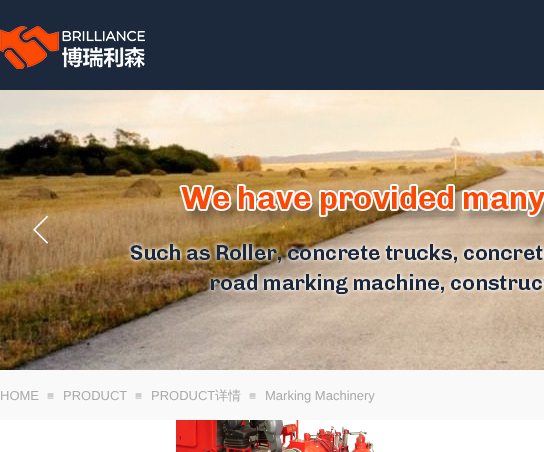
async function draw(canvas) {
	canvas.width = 544;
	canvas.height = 452;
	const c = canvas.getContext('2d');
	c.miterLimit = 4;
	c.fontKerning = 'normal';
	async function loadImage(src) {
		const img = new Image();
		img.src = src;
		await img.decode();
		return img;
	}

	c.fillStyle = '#fff';
	c.fillRect(0, 0, 544, 452);
	c.fillStyle = '#1c283b';
	c.fillRect(0, 0, 544, 90);
	c.drawImage(await loadImage('img1.png'), 0, 26, 145, 43);
	c.drawImage(await loadImage('img2.png'), 0, 90, 544, 280);
	c.drawImage(await loadImage('img3.png'), 32, 215, 17, 29);
	c.fillStyle = '#f9f9f9';
	c.fillRect(0, 370, 544, 50);
	c.font = '13px Liberation Sans';
	c.fillStyle = '#aaa';
	c.fillText('HOME', 0, 400);
	c.font = '12px Liberation Sans';
	c.fillText('≡', 47, 400);
	c.font = '13px Liberation Sans';
	c.fillText('PRODUCT', 63, 400);
	c.font = '12px Liberation Sans';
	c.fillText('≡', 135, 400);
	c.font = '13px Liberation Sans';
	c.fillText('PRODUCT', 151, 400);
	c.font = '500 13px WenQuanYi Zen Hei';
	c.fillText('详情', 215, 400);
	c.font = '12px Liberation Sans';
	c.fillText('≡', 249, 400);
	c.font = '13px Liberation Sans';
	c.fillText('Marking Machinery', 265, 400);
	c.drawImage(await loadImage('img4.png'), 176, 420, 198, 32);
}

draw(document.querySelector('canvas'));
